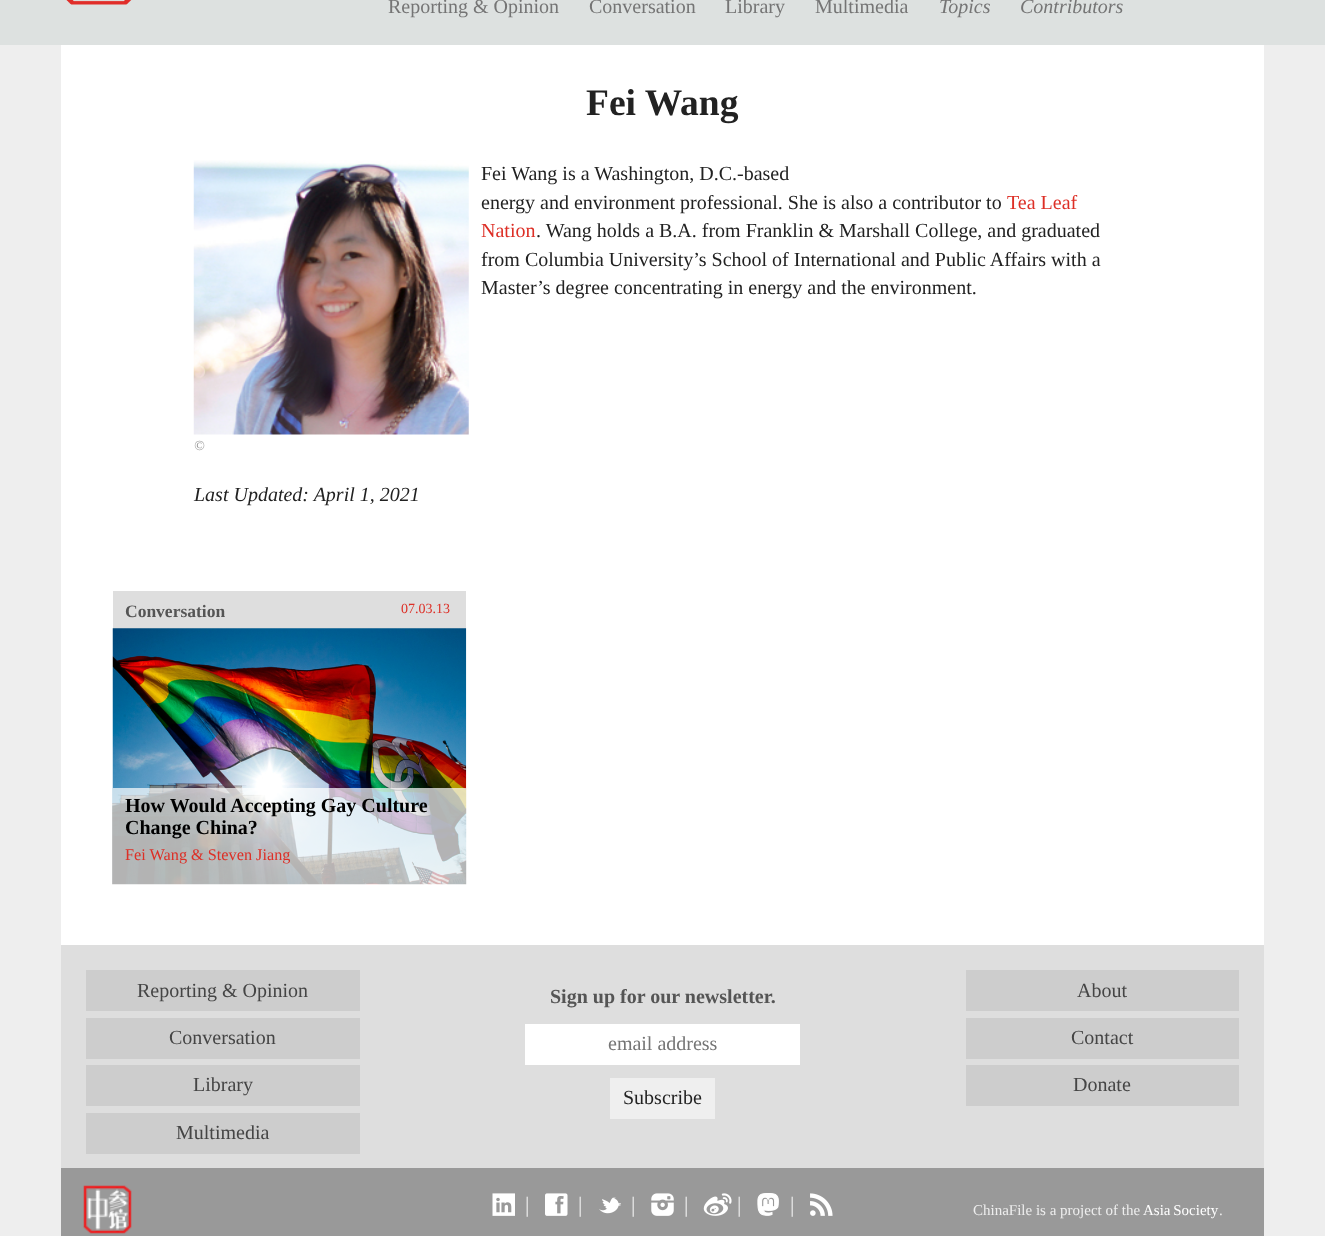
async function draw(canvas) {
	canvas.width = 1325;
	canvas.height = 1236;
	const c = canvas.getContext('2d');
	c.miterLimit = 4;
	c.fontKerning = 'normal';
	async function loadImage(src) {
		const img = new Image();
		img.src = src;
		await img.decode();
		return img;
	}

	c.fillStyle = '#eee';
	c.fillRect(0, 0, 1325, 1236);
	c.fillStyle = '#dde1e0';
	c.fillRect(0, 0, 1325, 45);
	c.drawImage(await loadImage('img1.png'), 66, 0, 66, 5);
	c.font = '20px Liberation Serif';
	c.fillStyle = '#757575';
	for (const [text, x, y] of [
		['Reporting & Opinion', 388, 13],
		['Conversation', 589, 13],
		['Library', 725, 13],
		['Multimedia', 815, 13],
	]) {
		c.fillText(text, x, y);
	}
	c.font = 'italic 20px Liberation Serif';
	c.fillText('Topics', 939, 13);
	c.fillText('Contributors', 1020, 13);
	c.fillStyle = '#fff';
	c.fillRect(61, 45, 1203, 900);
	c.font = 'bold 37.5px Liberation Serif';
	c.fillStyle = '#222';
	c.fillText('Fei Wang', 586, 115);
	c.font = '20px Liberation Serif';
	c.fillText('Fei Wang is a Washington, D.C.-based', 481, 180);
	c.fillText('energy and environment professional. She is also a contributor to', 481, 209);
	c.fillStyle = '#dd2f26';
	c.fillText('Tea Leaf', 1007, 209);
	c.fillText('Nation', 481, 237);
	c.fillStyle = '#222';
	for (const [text, x, y] of [
		['. Wang holds a B.A. from Franklin & Marshall College, and graduated', 536, 237],
		['from Columbia University’s School of International and Public Affairs with a', 481, 266],
		['Master’s degree concentrating in energy and the environment.', 481, 294],
	]) {
		c.fillText(text, x, y);
	}
	c.drawImage(await loadImage('img2.png'), 193, 160, 276, 275);
	c.font = 'italic 14px Liberation Serif';
	c.fillStyle = '#999';
	c.fillText('©', 194, 450);
	c.font = 'italic 20px Liberation Serif';
	c.fillStyle = '#222';
	c.fillText('Last Updated: April 1, 2021', 194, 501);
	c.fillStyle = '#dedede';
	c.fillRect(113, 591, 353, 38);
	c.font = 'bold 17.5px Liberation Serif';
	c.fillStyle = '#555';
	c.fillText('Conversation', 125, 617);
	c.font = '14px Liberation Serif';
	c.fillStyle = '#dd2f26';
	c.fillText('07.03.13', 401, 613);
	c.drawImage(await loadImage('img3.png'), 112, 628, 355, 257);
	c.fillStyle = '#ffffffb3';
	c.fillRect(113, 788, 353, 97);
	c.font = 'bold 20px Liberation Serif';
	c.fillStyle = '#000';
	c.fillText('How Would Accepting Gay Culture', 125, 812);
	c.fillText('Change China?', 125, 834);
	c.font = '16.25px Liberation Serif';
	c.fillStyle = '#dd2f26';
	c.fillText('Fei Wang & Steven Jiang', 125, 860);
	c.fillStyle = '#dedede';
	c.fillRect(61, 945, 1203, 223);
	c.fillStyle = '#cdcdcd';
	c.fillRect(86, 970, 274, 41);
	c.font = '20px Liberation Serif';
	c.fillStyle = '#454545';
	c.fillText('Reporting & Opinion', 137, 997);
	c.fillStyle = '#cdcdcd';
	c.fillRect(86, 1018, 274, 41);
	c.fillStyle = '#454545';
	c.fillText('Conversation', 169, 1044);
	c.fillStyle = '#cdcdcd';
	c.fillRect(86, 1065, 274, 41);
	c.fillStyle = '#454545';
	c.fillText('Library', 193, 1091);
	c.fillStyle = '#cdcdcd';
	c.fillRect(86, 1113, 274, 41);
	c.fillStyle = '#454545';
	c.fillText('Multimedia', 176, 1139);
	c.font = 'bold 20px Liberation Serif';
	c.fillStyle = '#555';
	c.fillText('Sign up for our newsletter.', 550, 1003);
	c.fillStyle = '#fff';
	c.fillRect(525, 1024, 275, 41);
	c.font = '20px Liberation Serif';
	c.fillStyle = '#757575';
	c.fillText('email address', 608, 1050);
	c.fillStyle = '#efefef';
	c.fillRect(610, 1078, 105, 41);
	c.fillStyle = '#222';
	c.fillText('Subscribe', 623, 1104);
	c.fillStyle = '#cdcdcd';
	c.fillRect(966, 970, 273, 41);
	c.fillStyle = '#454545';
	c.fillText('About', 1077, 997);
	c.fillStyle = '#cdcdcd';
	c.fillRect(966, 1018, 273, 41);
	c.fillStyle = '#454545';
	c.fillText('Contact', 1071, 1044);
	c.fillStyle = '#cdcdcd';
	c.fillRect(966, 1065, 273, 41);
	c.fillStyle = '#454545';
	c.fillText('Donate', 1073, 1091);
	c.fillStyle = '#999';
	c.fillRect(61, 1168, 1203, 68);
	c.drawImage(await loadImage('img4.png'), 83, 1185, 49, 49);
	c.drawImage(await loadImage('img5.png'), 492, 1193, 23, 23);
	c.font = '22px Liberation Serif';
	c.fillStyle = '#eee';
	c.fillText('|', 525, 1212);
	c.drawImage(await loadImage('img6.png'), 545, 1193, 23, 23);
	c.fillText('|', 578, 1212);
	c.drawImage(await loadImage('img7.png'), 599, 1197, 22, 17);
	c.fillText('|', 631, 1212);
	c.drawImage(await loadImage('img8.png'), 651, 1193, 23, 23);
	c.fillText('|', 684, 1212);
	c.drawImage(await loadImage('img9.png'), 703, 1193, 29, 23);
	c.fillText('|', 737, 1212);
	c.drawImage(await loadImage('img10.png'), 757, 1193, 22, 23);
	c.fillText('|', 790, 1212);
	c.drawImage(await loadImage('img11.png'), 810, 1193, 23, 23);
	c.font = '15px Liberation Serif';
	c.fillText('ChinaFile is a project of the', 973, 1215);
	c.wordSpacing = '-1px';
	c.fillStyle = '#fff';
	c.fillText('Asia Society', 1143, 1215);
	c.wordSpacing = '0px';
	c.fillStyle = '#eee';
	c.fillText('.', 1219, 1215);
}

draw(document.querySelector('canvas'));
